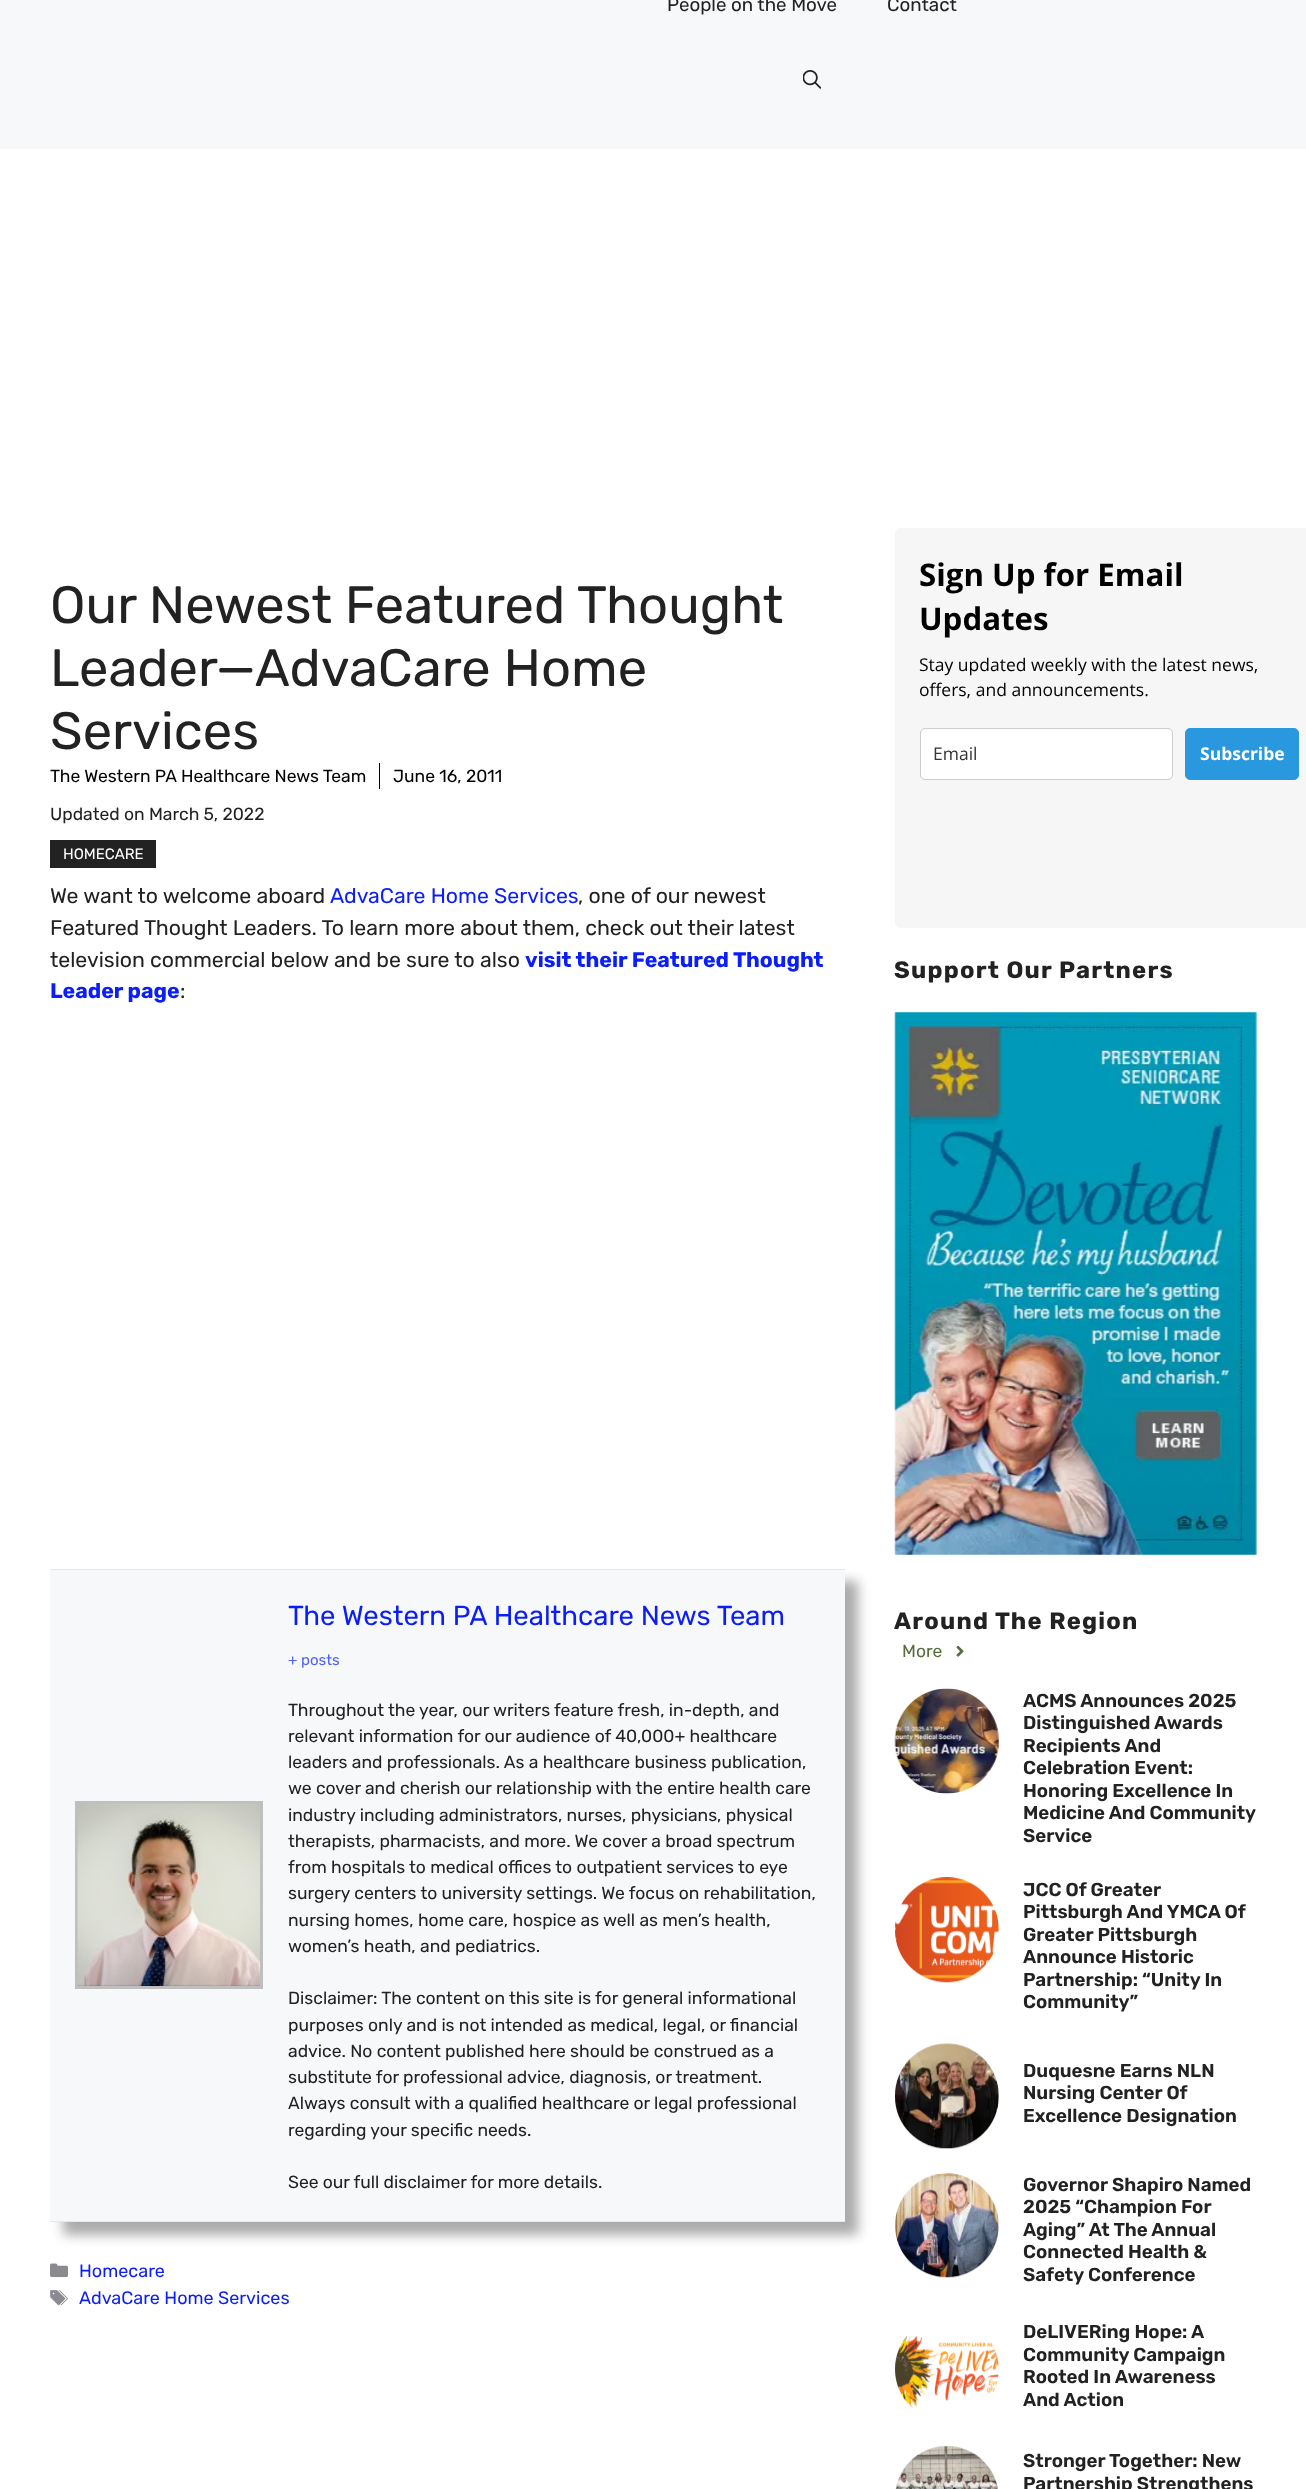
async function draw(canvas) {
	canvas.width = 1306;
	canvas.height = 2489;
	const c = canvas.getContext('2d');
	c.miterLimit = 4;
	c.fontKerning = 'normal';
	async function loadImage(src) {
		const img = new Image();
		img.src = src;
		await img.decode();
		return img;
	}

	c.fillStyle = '#fff';
	c.fillRect(0, 0, 1306, 2489);
	c.fillStyle = '#f7f8f9';
	c.fillRect(0, 0, 1306, 149);
	c.font = '300 18.75px Rubik';
	c.fillStyle = '#222';
	c.fillText('People on the Move', 667, 11);
	c.fillText('Contact', 887, 11);
	c.drawImage(await loadImage('img1.png'), 803, 70, 18, 19);
	c.font = '300 52.5px Rubik';
	for (const [text, x, y] of [
		['Our Newest Featured Thought', 50, 623],
		['Leader—AdvaCare Home', 50, 686],
		['Services', 50, 749],
	]) {
		c.fillText(text, x, y);
	}
	c.fillStyle = '#000';
	c.fillRect(379, 763, 1, 26);
	c.font = '300 17.5px Rubik';
	c.fillText('The Western PA Healthcare News Team', 50, 782);
	c.fillText('June 16, 2011', 393, 782);
	c.fillStyle = '#222';
	c.fillText('Updated on March 5, 2022', 50, 820);
	c.fillRect(50, 840, 106, 28);
	c.font = '300 15px Rubik';
	c.fillStyle = '#fff';
	c.fillText('HOMECARE', 63, 859);
	c.font = '300 21.25px Rubik';
	c.fillStyle = '#222';
	c.fillText('We want to welcome aboard', 50, 903);
	c.fillStyle = '#0b1ef4';
	c.fillText('AdvaCare Home Services', 330, 903);
	c.fillStyle = '#222';
	for (const [text, x, y] of [
		[', one of our newest', 578, 903],
		['Featured Thought Leaders. To learn more about them, check out their latest', 50, 935],
		['television commercial below and be sure to also', 50, 967],
	]) {
		c.fillText(text, x, y);
	}
	c.font = '300 21.25px "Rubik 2"';
	c.fillStyle = '#0b1ef4';
	c.fillText('visit their Featured Thought', 525, 967);
	c.fillText('Leader page', 50, 998);
	c.font = '300 21.25px Rubik';
	c.fillStyle = '#222';
	c.fillText(':', 180, 998);
	c.fillStyle = '#ababab';
	c.filter = 'blur(6px)';
	c.beginPath();
	c.rect(63, 1581, 795, 654);
	c.fill();
	c.filter = 'none';
	for (const [x, y, w, h, color] of [
		[50, 1570, 795, 651, '#f7f8f9'],
		[50, 1569, 795, 1, '#e8e8e8'],
		[50, 2221, 795, 1, '#e8e8e8'],
	]) {
		c.fillStyle = color;
		c.fillRect(x, y, w, h);
	}
	c.strokeStyle = '#bfbfbf';
	c.lineWidth = 3;
	c.strokeRect(76.5, 1802.5, 185, 185);
	c.drawImage(await loadImage('img2.png'), 77, 1803, 183, 183);
	c.font = '300 27.5px Rubik';
	c.fillStyle = '#0b1ef4';
	c.fillText('The Western PA Healthcare News Team', 288, 1625);
	c.font = '300 15px Rubik';
	c.fillStyle = '#525ff6';
	c.fillText('+ posts', 288, 1665);
	c.font = '300 17.5px Rubik';
	c.fillStyle = '#222';
	for (const [text, x, y] of [
		['Throughout the year, our writers feature fresh, in-depth, and', 288, 1716],
		['relevant information for our audience of 40,000+ healthcare', 288, 1742],
		['leaders and professionals. As a healthcare business publication,', 288, 1768],
		['we cover and cherish our relationship with the entire health care', 288, 1794],
		['industry including administrators, nurses, physicians, physical', 288, 1821],
		['therapists, pharmacists, and more. We cover a broad spectrum', 288, 1847],
		['from hospitals to medical offices to outpatient services to eye', 288, 1873],
		['surgery centers to university settings. We focus on rehabilitation,', 288, 1899],
		['nursing homes, home care, hospice as well as men’s health,', 288, 1926],
		['women’s heath, and pediatrics.', 288, 1952],
		['Disclaimer: The content on this site is for general informational', 288, 2004],
		['purposes only and is not intended as medical, legal, or financial', 288, 2031],
		['advice. No content published here should be construed as a', 288, 2057],
		['substitute for professional advice, diagnosis, or treatment.', 288, 2083],
		['Always consult with a qualified healthcare or legal professional', 288, 2109],
		['regarding your specific needs.', 288, 2136],
		['See our full disclaimer for more details.', 288, 2188],
	]) {
		c.fillText(text, x, y);
	}
	c.drawImage(await loadImage('img3.png'), 50, 2263, 18, 15);
	c.font = '300 18px Rubik';
	c.fillStyle = '#0b1ef4';
	c.fillText('Homecare', 79, 2277);
	c.drawImage(await loadImage('img4.png'), 50, 2290, 18, 16);
	c.fillText('AdvaCare Home Services', 79, 2304);
	c.fillStyle = '#f6f6f6';
	c.beginPath();
	c.roundRect(895, 528, 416, 400, 5);
	c.fill();
	c.font = 'bold 31.25px Open Sans';
	c.fillStyle = '#000';
	c.fillText('Sign Up for Email', 919, 586);
	c.fillText('Updates', 919, 630);
	c.font = '17.5px Open Sans';
	c.fillText('Stay updated weekly with the latest news,', 919, 671);
	c.fillText('offers, and announcements.', 919, 696);
	c.fillStyle = '#fff';
	c.beginPath();
	c.roundRect(920.5, 728.5, 252, 51, 4.5);
	c.fill();
	c.strokeStyle = '#ccc';
	c.lineWidth = 1;
	c.stroke();
	c.fillStyle = '#333';
	c.fillText('Email', 933, 760);
	c.fillStyle = '#2a98de';
	c.beginPath();
	c.roundRect(1185.5, 728.5, 113, 51, 4.5);
	c.fill();
	c.strokeStyle = '#2a98de';
	c.stroke();
	c.font = 'bold 17.5px Open Sans';
	c.fillStyle = '#fff';
	c.fillText('Subscribe', 1200, 760);
	c.letterSpacing = '1.25px';
	c.font = '300 23.75px "Rubik 2"';
	c.fillStyle = '#222';
	c.fillText('Support Our Partners', 894, 978);
	c.drawImage(await loadImage('img5.png'), 894, 1012, 363, 543);
	c.fillText('Around The Region', 894, 1629);
	c.letterSpacing = '0px';
	c.font = '300 17.5px Rubik';
	c.fillStyle = '#566e3d';
	c.fillText('More', 902, 1657);
	c.drawImage(await loadImage('img6.png'), 956, 1645, 8, 12);
	c.drawImage(await loadImage('img7.png'), 894, 1688, 105, 106);
	c.font = '600 18.75px Rubik';
	c.fillStyle = '#222';
	for (const [text, x, y] of [
		['ACMS Announces 2025', 1023, 1707],
		['Distinguished Awards', 1023, 1729],
		['Recipients And', 1023, 1752],
		['Celebration Event:', 1023, 1774],
		['Honoring Excellence In', 1023, 1797],
		['Medicine And Community', 1023, 1819],
		['Service', 1023, 1842],
	]) {
		c.fillText(text, x, y);
	}
	c.drawImage(await loadImage('img8.png'), 895, 1877, 104, 106);
	for (const [text, x, y] of [
		['JCC Of Greater', 1023, 1896],
		['Pittsburgh And YMCA Of', 1023, 1918],
		['Greater Pittsburgh', 1023, 1941],
		['Announce Historic', 1023, 1963],
		['Partnership: “Unity In', 1023, 1986],
		['Community”', 1023, 2008],
	]) {
		c.fillText(text, x, y);
	}
	c.drawImage(await loadImage('img9.png'), 895, 2043, 104, 106);
	for (const [text, x, y] of [
		['Duquesne Earns NLN', 1023, 2077],
		['Nursing Center Of', 1023, 2099],
		['Excellence Designation', 1023, 2122],
	]) {
		c.fillText(text, x, y);
	}
	c.drawImage(await loadImage('img10.png'), 895, 2173, 104, 105);
	for (const [text, x, y] of [
		['Governor Shapiro Named', 1023, 2191],
		['2025 “Champion For', 1023, 2213],
		['Aging” At The Annual', 1023, 2236],
		['Connected Health &', 1023, 2258],
		['Safety Conference', 1023, 2281],
	]) {
		c.fillText(text, x, y);
	}
	c.drawImage(await loadImage('img11.png'), 895, 2335, 104, 74);
	for (const [text, x, y] of [
		['DeLIVERing Hope: A', 1023, 2338],
		['Community Campaign', 1023, 2361],
		['Rooted In Awareness', 1023, 2383],
		['And Action', 1023, 2406],
	]) {
		c.fillText(text, x, y);
	}
	c.drawImage(await loadImage('img12.png'), 895, 2445, 103, 44);
	c.fillText('Stronger Together: New', 1023, 2467);
	c.fillText('Partnership Strengthens', 1023, 2490);
}

draw(document.querySelector('canvas'));
